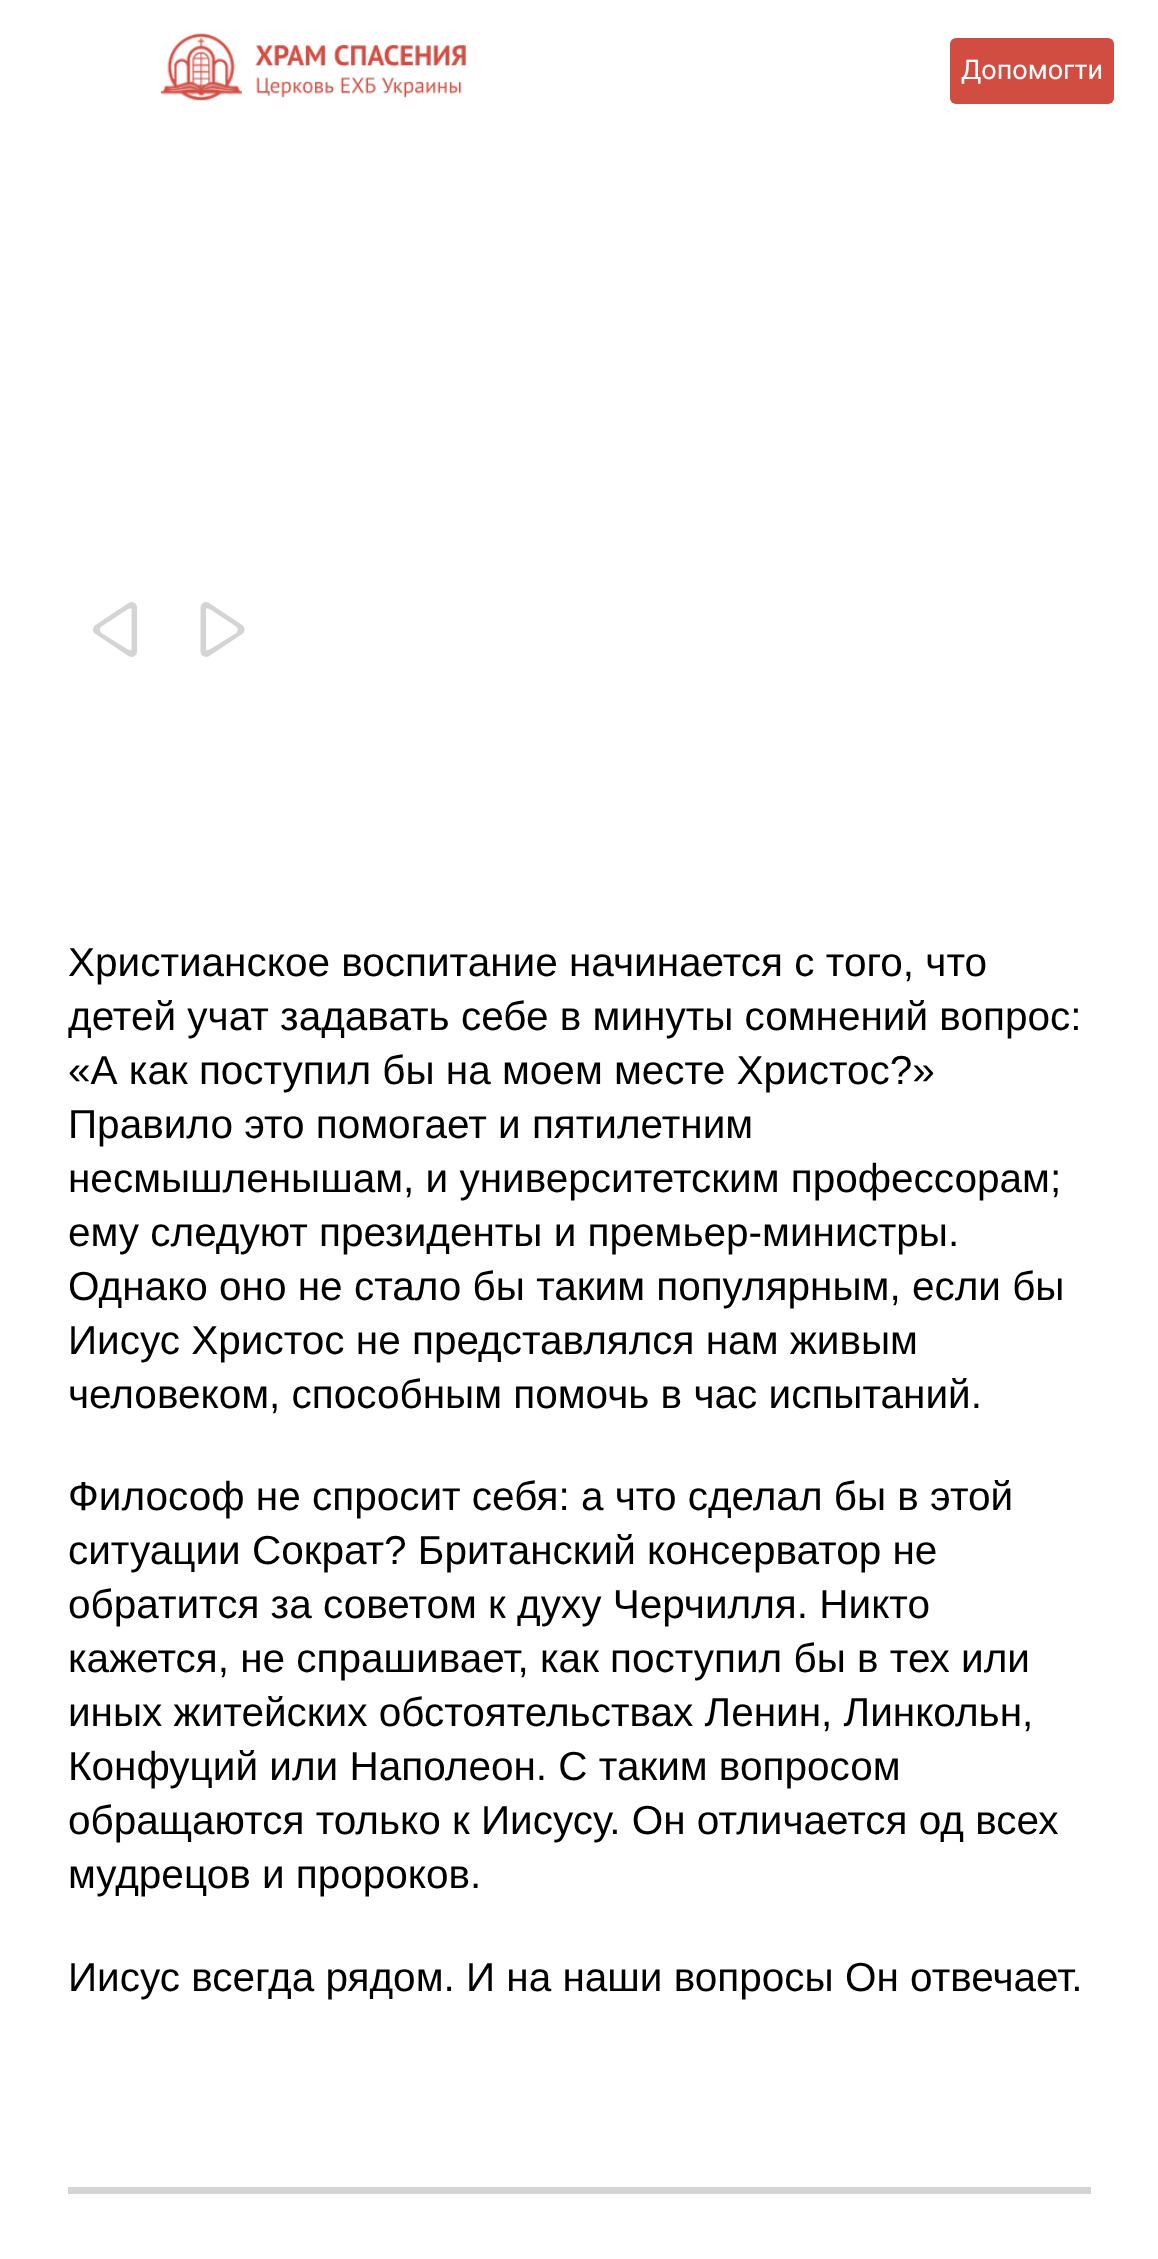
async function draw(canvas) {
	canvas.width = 1158;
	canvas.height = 2259;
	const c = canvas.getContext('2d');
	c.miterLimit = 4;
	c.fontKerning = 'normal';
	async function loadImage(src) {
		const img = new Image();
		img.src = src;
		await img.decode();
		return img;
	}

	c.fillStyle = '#fff';
	c.fillRect(0, 0, 1158, 2259);
	c.drawImage(await loadImage('img1.png'), 160, 33, 306, 68);
	c.fillStyle = '#d14d42';
	c.beginPath();
	c.roundRect(950, 38, 164, 66, 6);
	c.fill();
	c.font = '27px Roboto';
	c.fillStyle = '#fff';
	c.fillText('Допомогти', 961, 79);
	c.drawImage(await loadImage('img2.png'), 93, 602, 44, 55);
	c.drawImage(await loadImage('img3.png'), 200, 602, 45, 55);
	c.font = '40.5px Liberation Sans';
	c.fillStyle = '#000';
	for (const [text, x, y] of [
		['Христианское воспитание начинается с того, что', 68, 976],
		['детей учат задавать себе в минуты сомнений вопрос:', 68, 1030],
		['«А как поступил бы на моем месте Христос?»', 68, 1084],
		['Правило это помогает и пятилетним', 68, 1138],
		['несмышленышам, и университетским профессорам;', 68, 1192],
		['ему следуют президенты и премьер-министры.', 68, 1246],
		['Однако оно не стало бы таким популярным, если бы', 68, 1300],
		['Иисус Христос не представлялся нам живым', 68, 1354],
		['человеком, способным помочь в час испытаний.', 68, 1408],
		['Философ не спросит себя: а что сделал бы в этой', 68, 1510],
		['ситуации Сократ? Британский консерватор не', 68, 1564],
		['обратится за советом к духу Черчилля. Никто', 68, 1618],
		['кажется, не спрашивает, как поступил бы в тех или', 68, 1672],
		['иных житейских обстоятельствах Ленин, Линкольн,', 68, 1726],
		['Конфуций или Наполеон. С таким вопросом', 68, 1780],
		['обращаются только к Иисусу. Он отличается од всех', 68, 1834],
		['мудрецов и пророков.', 68, 1888],
		['Иисус всегда рядом. И на наши вопросы Он отвечает.', 68, 1991],
	]) {
		c.fillText(text, x, y);
	}
	c.fillStyle = '#d4d4d4';
	c.fillRect(68, 2187, 1023, 7);
}

draw(document.querySelector('canvas'));
